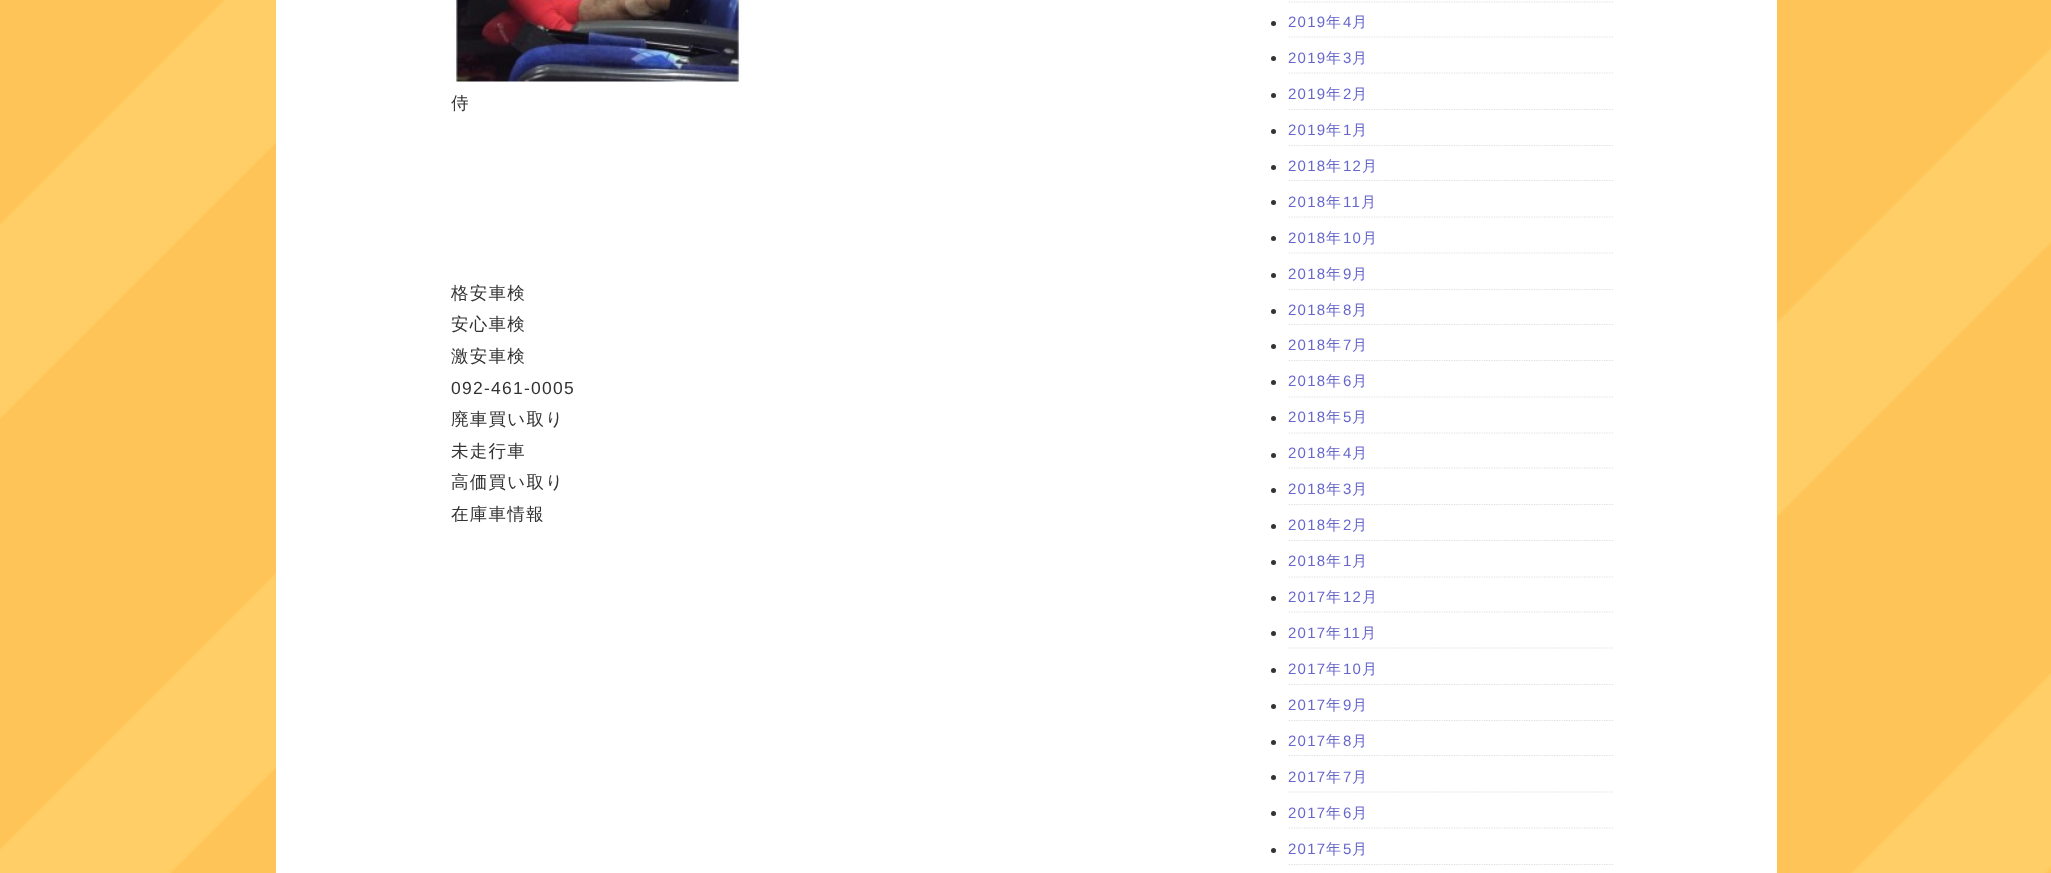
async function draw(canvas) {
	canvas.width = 2051;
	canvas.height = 873;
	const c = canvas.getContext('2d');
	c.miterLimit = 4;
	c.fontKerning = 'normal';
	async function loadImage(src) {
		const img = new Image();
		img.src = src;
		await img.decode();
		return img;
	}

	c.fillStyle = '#fff';
	c.fillRect(0, 0, 2051, 873);
	c.drawImage(await loadImage('img1.png'), 0, 0, 2051, 873);
	c.fillRect(276, 0, 1501, 873);
	c.drawImage(await loadImage('img2.png'), 452, 0, 290, 82);
	c.letterSpacing = '1.25px';
	c.font = '500 17.5px WenQuanYi Zen Hei';
	c.fillStyle = '#333';
	for (const [text, x, y] of [
		['侍', 451, 109],
		['格安車検', 451, 299],
		['安心車検', 451, 330],
		['激安車検', 451, 362],
	]) {
		c.fillText(text, x, y);
	}
	c.font = '17.5px Liberation Sans';
	c.fillText('092-461-0005', 451, 394);
	c.font = '500 17.5px WenQuanYi Zen Hei';
	for (const [text, x, y] of [
		['廃車買い取り', 451, 425],
		['未走行車', 451, 457],
		['高価買い取り', 451, 488],
		['在庫車情報', 451, 520],
	]) {
		c.fillText(text, x, y);
	}
	c.beginPath();
	c.moveTo(1289, 2);
	c.lineTo(1614, 2);
	c.strokeStyle = '#ddd';
	c.lineWidth = 1.2;
	c.setLineDash([1.25, 1.25]);
	c.stroke();
	c.beginPath();
	c.moveTo(1289, 37);
	c.lineTo(1614, 37);
	c.stroke();
	c.beginPath();
	c.arc(1273.5, 23.5, 2.5, 0, 2 * Math.PI);
	c.fill();
	c.font = '15px Liberation Sans';
	c.fillStyle = '#66c';
	c.fillText('2019', 1288, 27);
	c.font = '500 15px WenQuanYi Zen Hei';
	c.fillText('年', 1326, 27);
	c.font = '15px Liberation Sans';
	c.fillText('4', 1343, 27);
	c.font = '500 15px WenQuanYi Zen Hei';
	c.fillText('月', 1352, 27);
	c.beginPath();
	c.moveTo(1289, 73);
	c.lineTo(1614, 73);
	c.stroke();
	c.fillStyle = '#333';
	c.beginPath();
	c.arc(1273.5, 58.5, 2.5, 0, 2 * Math.PI);
	c.fill();
	c.font = '15px Liberation Sans';
	c.fillStyle = '#66c';
	c.fillText('2019', 1288, 63);
	c.font = '500 15px WenQuanYi Zen Hei';
	c.fillText('年', 1326, 63);
	c.font = '15px Liberation Sans';
	c.fillText('3', 1343, 63);
	c.font = '500 15px WenQuanYi Zen Hei';
	c.fillText('月', 1352, 63);
	c.beginPath();
	c.moveTo(1289, 109.5);
	c.lineTo(1614, 109.5);
	c.stroke();
	c.fillStyle = '#333';
	c.beginPath();
	c.arc(1273.5, 95.5, 2.5, 0, 2 * Math.PI);
	c.fill();
	c.font = '15px Liberation Sans';
	c.fillStyle = '#66c';
	c.fillText('2019', 1288, 99);
	c.font = '500 15px WenQuanYi Zen Hei';
	c.fillText('年', 1326, 99);
	c.font = '15px Liberation Sans';
	c.fillText('2', 1343, 99);
	c.font = '500 15px WenQuanYi Zen Hei';
	c.fillText('月', 1352, 99);
	c.beginPath();
	c.moveTo(1289, 145.5);
	c.lineTo(1614, 145.5);
	c.stroke();
	c.fillStyle = '#333';
	c.beginPath();
	c.arc(1273.5, 131.5, 2.5, 0, 2 * Math.PI);
	c.fill();
	c.font = '15px Liberation Sans';
	c.fillStyle = '#66c';
	c.fillText('2019', 1288, 135);
	c.font = '500 15px WenQuanYi Zen Hei';
	c.fillText('年', 1326, 135);
	c.font = '15px Liberation Sans';
	c.fillText('1', 1343, 135);
	c.font = '500 15px WenQuanYi Zen Hei';
	c.fillText('月', 1352, 135);
	c.beginPath();
	c.moveTo(1289, 180.5);
	c.lineTo(1614, 180.5);
	c.stroke();
	c.fillStyle = '#333';
	c.beginPath();
	c.arc(1273.5, 167.5, 2.5, 0, 2 * Math.PI);
	c.fill();
	c.font = '15px Liberation Sans';
	c.fillStyle = '#66c';
	c.fillText('2018', 1288, 171);
	c.font = '500 15px WenQuanYi Zen Hei';
	c.fillText('年', 1326, 171);
	c.font = '15px Liberation Sans';
	c.fillText('12', 1343, 171);
	c.font = '500 15px WenQuanYi Zen Hei';
	c.fillText('月', 1362, 171);
	c.beginPath();
	c.moveTo(1289, 217);
	c.lineTo(1614, 217);
	c.stroke();
	c.fillStyle = '#333';
	c.beginPath();
	c.arc(1273.5, 202.5, 2.5, 0, 2 * Math.PI);
	c.fill();
	c.font = '15px Liberation Sans';
	c.fillStyle = '#66c';
	c.fillText('2018', 1288, 207);
	c.font = '500 15px WenQuanYi Zen Hei';
	c.fillText('年', 1326, 207);
	c.font = '15px Liberation Sans';
	c.fillText('11', 1343, 207);
	c.font = '500 15px WenQuanYi Zen Hei';
	c.fillText('月', 1361, 207);
	c.beginPath();
	c.moveTo(1289, 253);
	c.lineTo(1614, 253);
	c.stroke();
	c.fillStyle = '#333';
	c.beginPath();
	c.arc(1273.5, 238.5, 2.5, 0, 2 * Math.PI);
	c.fill();
	c.font = '15px Liberation Sans';
	c.fillStyle = '#66c';
	c.fillText('2018', 1288, 243);
	c.font = '500 15px WenQuanYi Zen Hei';
	c.fillText('年', 1326, 243);
	c.font = '15px Liberation Sans';
	c.fillText('10', 1343, 243);
	c.font = '500 15px WenQuanYi Zen Hei';
	c.fillText('月', 1362, 243);
	c.beginPath();
	c.moveTo(1289, 289.5);
	c.lineTo(1614, 289.5);
	c.stroke();
	c.fillStyle = '#333';
	c.beginPath();
	c.arc(1273.5, 275.5, 2.5, 0, 2 * Math.PI);
	c.fill();
	c.font = '15px Liberation Sans';
	c.fillStyle = '#66c';
	c.fillText('2018', 1288, 279);
	c.font = '500 15px WenQuanYi Zen Hei';
	c.fillText('年', 1326, 279);
	c.font = '15px Liberation Sans';
	c.fillText('9', 1343, 279);
	c.font = '500 15px WenQuanYi Zen Hei';
	c.fillText('月', 1352, 279);
	c.beginPath();
	c.moveTo(1289, 324.5);
	c.lineTo(1614, 324.5);
	c.stroke();
	c.fillStyle = '#333';
	c.beginPath();
	c.arc(1273.5, 311.5, 2.5, 0, 2 * Math.PI);
	c.fill();
	c.font = '15px Liberation Sans';
	c.fillStyle = '#66c';
	c.fillText('2018', 1288, 315);
	c.font = '500 15px WenQuanYi Zen Hei';
	c.fillText('年', 1326, 315);
	c.font = '15px Liberation Sans';
	c.fillText('8', 1343, 315);
	c.font = '500 15px WenQuanYi Zen Hei';
	c.fillText('月', 1352, 315);
	c.beginPath();
	c.moveTo(1289, 360.5);
	c.lineTo(1614, 360.5);
	c.stroke();
	c.fillStyle = '#333';
	c.beginPath();
	c.arc(1273.5, 346.5, 2.5, 0, 2 * Math.PI);
	c.fill();
	c.font = '15px Liberation Sans';
	c.fillStyle = '#66c';
	c.fillText('2018', 1288, 350);
	c.font = '500 15px WenQuanYi Zen Hei';
	c.fillText('年', 1326, 350);
	c.font = '15px Liberation Sans';
	c.fillText('7', 1343, 350);
	c.font = '500 15px WenQuanYi Zen Hei';
	c.fillText('月', 1352, 350);
	c.beginPath();
	c.moveTo(1289, 397);
	c.lineTo(1614, 397);
	c.stroke();
	c.fillStyle = '#333';
	c.beginPath();
	c.arc(1273.5, 382.5, 2.5, 0, 2 * Math.PI);
	c.fill();
	c.font = '15px Liberation Sans';
	c.fillStyle = '#66c';
	c.fillText('2018', 1288, 386);
	c.font = '500 15px WenQuanYi Zen Hei';
	c.fillText('年', 1326, 386);
	c.font = '15px Liberation Sans';
	c.fillText('6', 1343, 386);
	c.font = '500 15px WenQuanYi Zen Hei';
	c.fillText('月', 1352, 386);
	c.beginPath();
	c.moveTo(1289, 433);
	c.lineTo(1614, 433);
	c.stroke();
	c.fillStyle = '#333';
	c.beginPath();
	c.arc(1273.5, 418.5, 2.5, 0, 2 * Math.PI);
	c.fill();
	c.font = '15px Liberation Sans';
	c.fillStyle = '#66c';
	c.fillText('2018', 1288, 422);
	c.font = '500 15px WenQuanYi Zen Hei';
	c.fillText('年', 1326, 422);
	c.font = '15px Liberation Sans';
	c.fillText('5', 1343, 422);
	c.font = '500 15px WenQuanYi Zen Hei';
	c.fillText('月', 1352, 422);
	c.beginPath();
	c.moveTo(1289, 468);
	c.lineTo(1614, 468);
	c.stroke();
	c.fillStyle = '#333';
	c.beginPath();
	c.arc(1273.5, 455.5, 2.5, 0, 2 * Math.PI);
	c.fill();
	c.font = '15px Liberation Sans';
	c.fillStyle = '#66c';
	c.fillText('2018', 1288, 458);
	c.font = '500 15px WenQuanYi Zen Hei';
	c.fillText('年', 1326, 458);
	c.font = '15px Liberation Sans';
	c.fillText('4', 1343, 458);
	c.font = '500 15px WenQuanYi Zen Hei';
	c.fillText('月', 1352, 458);
	c.beginPath();
	c.moveTo(1289, 504.5);
	c.lineTo(1614, 504.5);
	c.stroke();
	c.fillStyle = '#333';
	c.beginPath();
	c.arc(1273.5, 490.5, 2.5, 0, 2 * Math.PI);
	c.fill();
	c.font = '15px Liberation Sans';
	c.fillStyle = '#66c';
	c.fillText('2018', 1288, 494);
	c.font = '500 15px WenQuanYi Zen Hei';
	c.fillText('年', 1326, 494);
	c.font = '15px Liberation Sans';
	c.fillText('3', 1343, 494);
	c.font = '500 15px WenQuanYi Zen Hei';
	c.fillText('月', 1352, 494);
	c.beginPath();
	c.moveTo(1289, 540.5);
	c.lineTo(1614, 540.5);
	c.stroke();
	c.fillStyle = '#333';
	c.beginPath();
	c.arc(1273.5, 526.5, 2.5, 0, 2 * Math.PI);
	c.fill();
	c.font = '15px Liberation Sans';
	c.fillStyle = '#66c';
	c.fillText('2018', 1288, 530);
	c.font = '500 15px WenQuanYi Zen Hei';
	c.fillText('年', 1326, 530);
	c.font = '15px Liberation Sans';
	c.fillText('2', 1343, 530);
	c.font = '500 15px WenQuanYi Zen Hei';
	c.fillText('月', 1352, 530);
	c.beginPath();
	c.moveTo(1289, 577);
	c.lineTo(1614, 577);
	c.stroke();
	c.fillStyle = '#333';
	c.beginPath();
	c.arc(1273.5, 562.5, 2.5, 0, 2 * Math.PI);
	c.fill();
	c.font = '15px Liberation Sans';
	c.fillStyle = '#66c';
	c.fillText('2018', 1288, 566);
	c.font = '500 15px WenQuanYi Zen Hei';
	c.fillText('年', 1326, 566);
	c.font = '15px Liberation Sans';
	c.fillText('1', 1343, 566);
	c.font = '500 15px WenQuanYi Zen Hei';
	c.fillText('月', 1352, 566);
	c.beginPath();
	c.moveTo(1289, 612);
	c.lineTo(1614, 612);
	c.stroke();
	c.fillStyle = '#333';
	c.beginPath();
	c.arc(1273.5, 598.5, 2.5, 0, 2 * Math.PI);
	c.fill();
	c.font = '15px Liberation Sans';
	c.fillStyle = '#66c';
	c.fillText('2017', 1288, 602);
	c.font = '500 15px WenQuanYi Zen Hei';
	c.fillText('年', 1326, 602);
	c.font = '15px Liberation Sans';
	c.fillText('12', 1343, 602);
	c.font = '500 15px WenQuanYi Zen Hei';
	c.fillText('月', 1362, 602);
	c.beginPath();
	c.moveTo(1289, 648);
	c.lineTo(1614, 648);
	c.stroke();
	c.fillStyle = '#333';
	c.beginPath();
	c.arc(1273.5, 633.5, 2.5, 0, 2 * Math.PI);
	c.fill();
	c.font = '15px Liberation Sans';
	c.fillStyle = '#66c';
	c.fillText('2017', 1288, 638);
	c.font = '500 15px WenQuanYi Zen Hei';
	c.fillText('年', 1326, 638);
	c.font = '15px Liberation Sans';
	c.fillText('11', 1343, 638);
	c.font = '500 15px WenQuanYi Zen Hei';
	c.fillText('月', 1361, 638);
	c.beginPath();
	c.moveTo(1289, 684.5);
	c.lineTo(1614, 684.5);
	c.stroke();
	c.fillStyle = '#333';
	c.beginPath();
	c.arc(1273.5, 670.5, 2.5, 0, 2 * Math.PI);
	c.fill();
	c.font = '15px Liberation Sans';
	c.fillStyle = '#66c';
	c.fillText('2017', 1288, 674);
	c.font = '500 15px WenQuanYi Zen Hei';
	c.fillText('年', 1326, 674);
	c.font = '15px Liberation Sans';
	c.fillText('10', 1343, 674);
	c.font = '500 15px WenQuanYi Zen Hei';
	c.fillText('月', 1362, 674);
	c.beginPath();
	c.moveTo(1289, 720.5);
	c.lineTo(1614, 720.5);
	c.stroke();
	c.fillStyle = '#333';
	c.beginPath();
	c.arc(1273.5, 706.5, 2.5, 0, 2 * Math.PI);
	c.fill();
	c.font = '15px Liberation Sans';
	c.fillStyle = '#66c';
	c.fillText('2017', 1288, 710);
	c.font = '500 15px WenQuanYi Zen Hei';
	c.fillText('年', 1326, 710);
	c.font = '15px Liberation Sans';
	c.fillText('9', 1343, 710);
	c.font = '500 15px WenQuanYi Zen Hei';
	c.fillText('月', 1352, 710);
	c.beginPath();
	c.moveTo(1289, 755.5);
	c.lineTo(1614, 755.5);
	c.stroke();
	c.fillStyle = '#333';
	c.beginPath();
	c.arc(1273.5, 742.5, 2.5, 0, 2 * Math.PI);
	c.fill();
	c.font = '15px Liberation Sans';
	c.fillStyle = '#66c';
	c.fillText('2017', 1288, 746);
	c.font = '500 15px WenQuanYi Zen Hei';
	c.fillText('年', 1326, 746);
	c.font = '15px Liberation Sans';
	c.fillText('8', 1343, 746);
	c.font = '500 15px WenQuanYi Zen Hei';
	c.fillText('月', 1352, 746);
	c.beginPath();
	c.moveTo(1289, 792);
	c.lineTo(1614, 792);
	c.stroke();
	c.fillStyle = '#333';
	c.beginPath();
	c.arc(1273.5, 777.5, 2.5, 0, 2 * Math.PI);
	c.fill();
	c.font = '15px Liberation Sans';
	c.fillStyle = '#66c';
	c.fillText('2017', 1288, 782);
	c.font = '500 15px WenQuanYi Zen Hei';
	c.fillText('年', 1326, 782);
	c.font = '15px Liberation Sans';
	c.fillText('7', 1343, 782);
	c.font = '500 15px WenQuanYi Zen Hei';
	c.fillText('月', 1352, 782);
	c.beginPath();
	c.moveTo(1289, 828);
	c.lineTo(1614, 828);
	c.stroke();
	c.fillStyle = '#333';
	c.beginPath();
	c.arc(1273.5, 813.5, 2.5, 0, 2 * Math.PI);
	c.fill();
	c.font = '15px Liberation Sans';
	c.fillStyle = '#66c';
	c.fillText('2017', 1288, 818);
	c.font = '500 15px WenQuanYi Zen Hei';
	c.fillText('年', 1326, 818);
	c.font = '15px Liberation Sans';
	c.fillText('6', 1343, 818);
	c.font = '500 15px WenQuanYi Zen Hei';
	c.fillText('月', 1352, 818);
	c.beginPath();
	c.moveTo(1289, 864.5);
	c.lineTo(1614, 864.5);
	c.stroke();
	c.fillStyle = '#333';
	c.beginPath();
	c.arc(1273.5, 850.5, 2.5, 0, 2 * Math.PI);
	c.fill();
	c.font = '15px Liberation Sans';
	c.fillStyle = '#66c';
	c.fillText('2017', 1288, 854);
	c.font = '500 15px WenQuanYi Zen Hei';
	c.fillText('年', 1326, 854);
	c.font = '15px Liberation Sans';
	c.fillText('5', 1343, 854);
	c.font = '500 15px WenQuanYi Zen Hei';
	c.fillText('月', 1352, 854);
}

draw(document.querySelector('canvas'));
